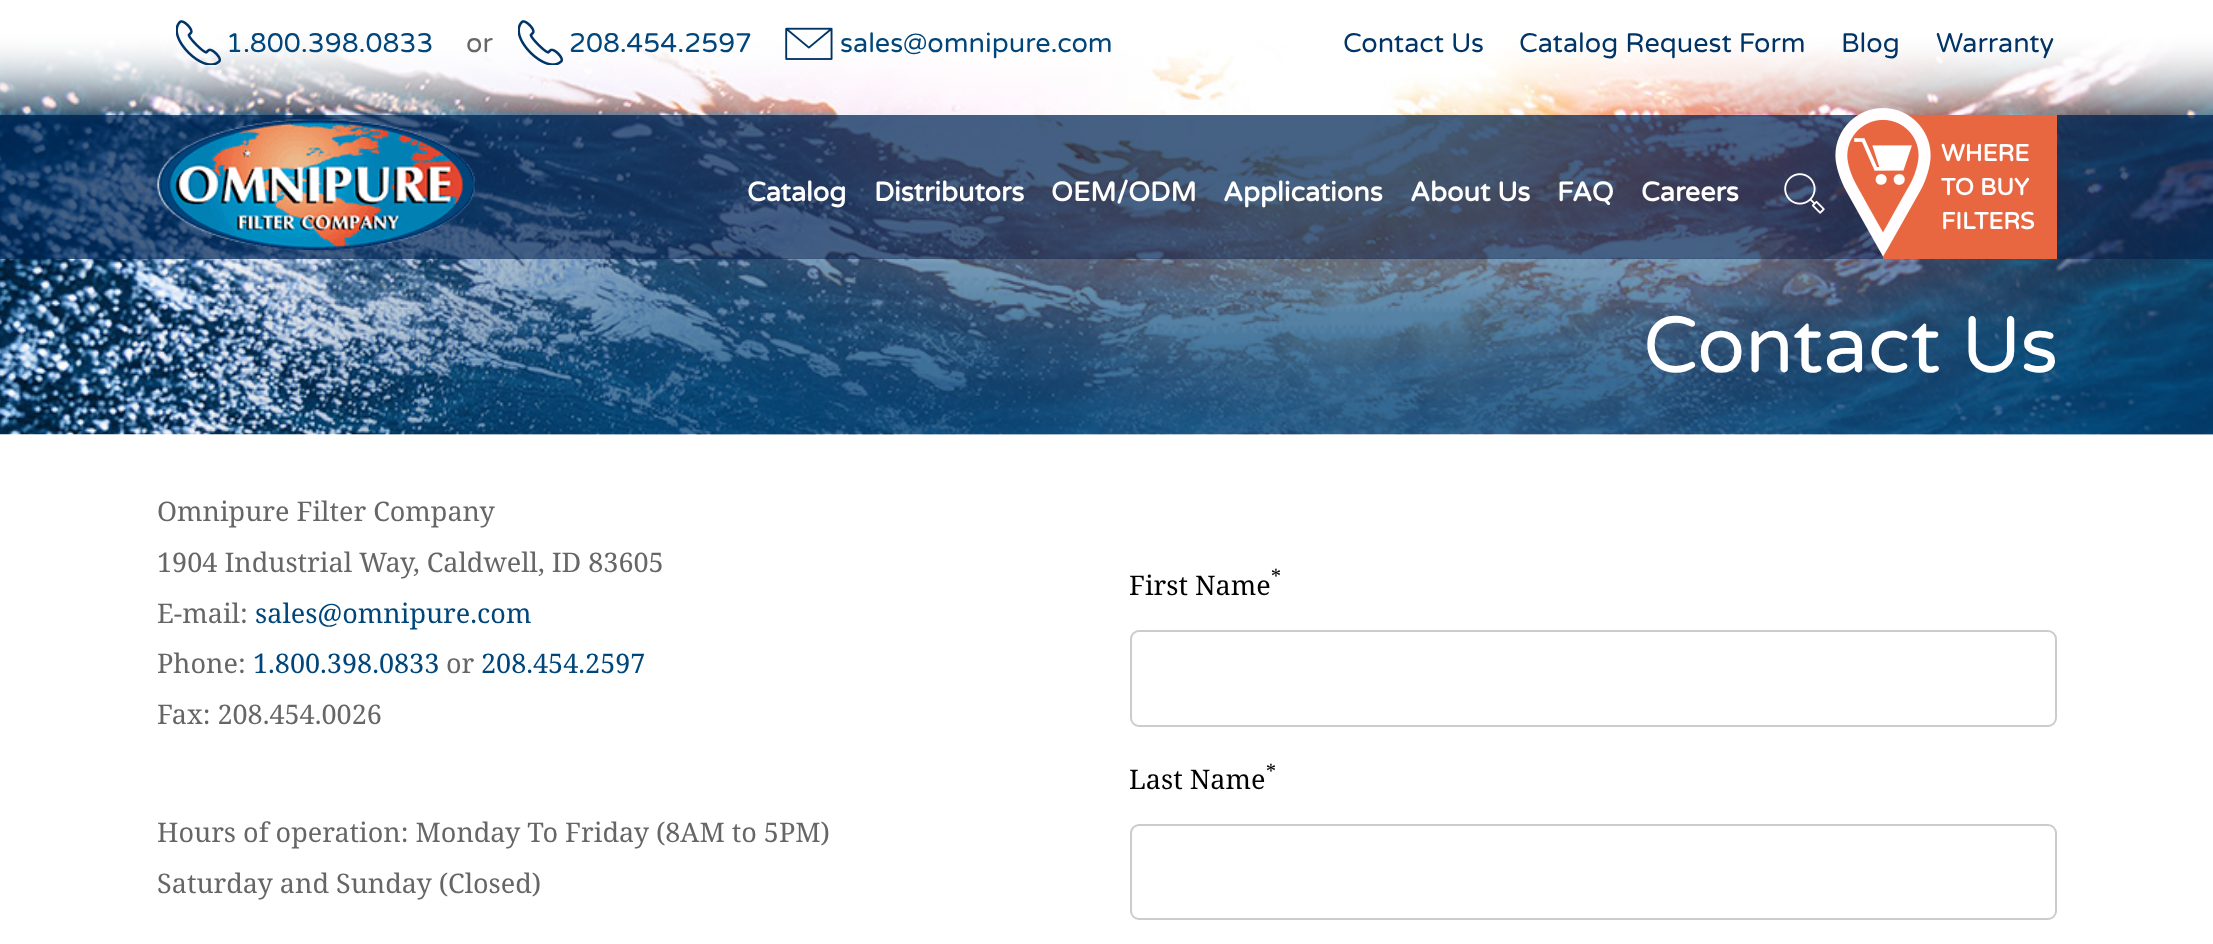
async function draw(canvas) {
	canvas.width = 2213;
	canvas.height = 944;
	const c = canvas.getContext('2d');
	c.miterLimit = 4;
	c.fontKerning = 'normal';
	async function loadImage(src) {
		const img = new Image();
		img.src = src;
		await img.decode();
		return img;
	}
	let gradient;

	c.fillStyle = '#fff';
	c.fillRect(0, 0, 2213, 944);
	c.drawImage(await loadImage('img1.png'), 0, 32, 2213, 403);
	gradient = c.createLinearGradient(1107, 0, 1107, 115);
	gradient.addColorStop(0, '#fff');
	gradient.addColorStop(0.27, '#fff');
	gradient.addColorStop(1, '#ffffff1c');
	c.fillStyle = gradient;
	c.fillRect(0, 32, 2213, 83);
	c.drawImage(await loadImage('img2.png'), 176, 20, 45, 45);
	c.font = '27px Varela Round';
	c.fillStyle = '#01467a';
	c.fillText('1.800.398.0833', 226, 52);
	c.fillStyle = '#666';
	c.fillText('or', 466, 52);
	c.drawImage(await loadImage('img3.png'), 518, 20, 45, 45);
	c.fillStyle = '#01467a';
	c.fillText('208.454.2597', 569, 52);
	c.drawImage(await loadImage('img4.png'), 785, 27, 48, 33);
	c.fillText('sales@omnipure.com', 840, 52);
	c.fillStyle = '#003466';
	for (const [text, x, y] of [
		['Contact Us', 1343, 52],
		['Catalog Request Form', 1519, 52],
		['Blog', 1841, 52],
		['Warranty', 1936, 52],
	]) {
		c.fillText(text, x, y);
	}
	c.drawImage(await loadImage('img8.png'), 122, 258, 2091, 177);
	c.fillStyle = '#002656ba';
	c.fillRect(0, 115, 2213, 144);
	c.drawImage(await loadImage('img5.png'), 157, 119, 318, 131);
	c.font = 'bold 27px Varela Round';
	c.fillStyle = '#fff';
	for (const [text, x, y] of [
		['Catalog', 747, 201],
		['Distributors', 874, 201],
		['OEM/ODM', 1051, 201],
		['Applications', 1223, 201],
		['About Us', 1410, 201],
		['FAQ', 1557, 201],
		['Careers', 1641, 201],
	]) {
		c.fillText(text, x, y);
	}
	c.drawImage(await loadImage('img6.png'), 1784, 173, 41, 41);
	c.fillStyle = '#e96740';
	c.fillRect(1883, 115, 174, 144);
	c.drawImage(await loadImage('img7.png'), 1835, 108, 96, 149);
	c.font = 'bold 23.5px Varela Round';
	c.fillStyle = '#fff';
	for (const [text, x, y] of [
		['WHERE', 1941, 161],
		['TO BUY', 1941, 195],
		['FILTERS', 1941, 229],
	]) {
		c.fillText(text, x, y);
	}
	c.font = '79.5px Varela Round';
	c.fillText('Contact Us', 1643, 372);
	c.font = '27px Noto Serif';
	c.fillStyle = '#666';
	for (const [text, x, y] of [
		['Omnipure Filter Company', 157, 521],
		['1904 Industrial Way, Caldwell, ID 83605', 157, 572],
		['E-mail:', 157, 623],
	]) {
		c.fillText(text, x, y);
	}
	c.fillStyle = '#01467a';
	c.fillText('sales@omnipure.com', 255, 623);
	c.fillStyle = '#666';
	c.fillText('Phone:', 157, 673);
	c.fillStyle = '#01467a';
	c.fillText('1.800.398.0833', 253, 673);
	c.fillStyle = '#666';
	c.fillText('or', 446, 673);
	c.fillStyle = '#01467a';
	c.fillText('208.454.2597', 481, 673);
	c.fillStyle = '#666';
	for (const [text, x, y] of [
		['Fax: 208.454.0026', 157, 724],
		['Hours of operation: Monday To Friday (8AM to 5PM)', 157, 842],
		['Saturday and Sunday (Closed)', 157, 893],
	]) {
		c.fillText(text, x, y);
	}
	c.font = '20px Noto Serif';
	c.fillStyle = '#000';
	c.fillText('*', 1271, 584);
	c.font = '27px Noto Serif';
	c.fillText('First Name', 1129, 595);
	c.beginPath();
	c.roundRect(1131, 631, 925, 95, 8);
	c.strokeStyle = '#ccc';
	c.lineWidth = 2;
	c.stroke();
	c.font = '20px Noto Serif';
	c.fillText('*', 1266, 779);
	c.font = '27px Noto Serif';
	c.fillText('Last Name', 1129, 789);
	c.beginPath();
	c.roundRect(1131, 825, 925, 94, 8);
	c.stroke();
}

draw(document.querySelector('canvas'));
